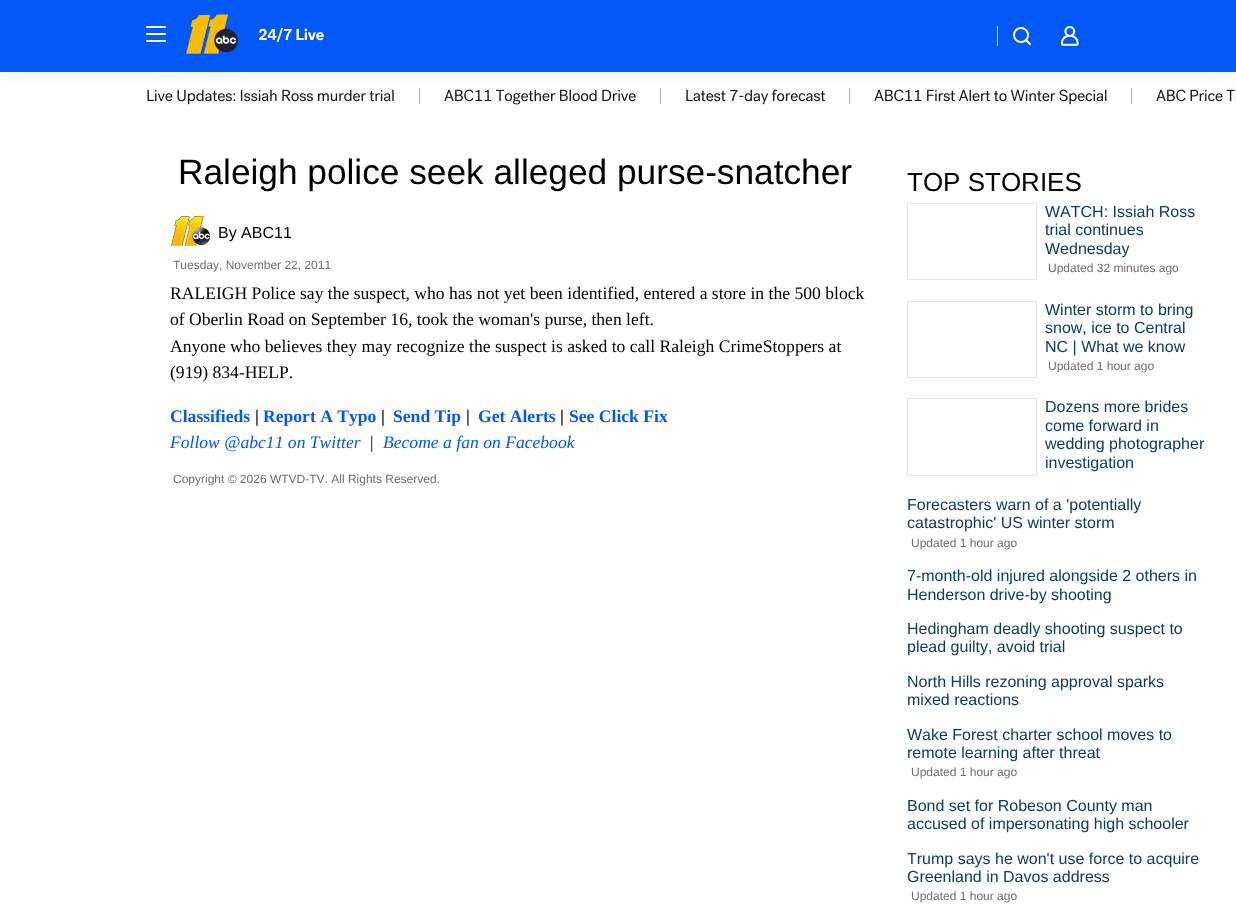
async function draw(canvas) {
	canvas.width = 1236;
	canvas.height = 908;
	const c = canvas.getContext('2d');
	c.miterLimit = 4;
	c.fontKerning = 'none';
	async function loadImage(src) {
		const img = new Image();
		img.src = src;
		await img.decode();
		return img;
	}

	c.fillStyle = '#fff';
	c.fillRect(0, 0, 1236, 908);
	c.drawImage(await loadImage('img5.png'), 147, 89, 247, 16);
	c.fillStyle = '#b0b5be';
	c.fillRect(419, 88, 1, 16);
	c.drawImage(await loadImage('img6.png'), 444, 89, 192, 16);
	c.fillRect(660, 88, 1, 16);
	c.drawImage(await loadImage('img7.png'), 686, 89, 140, 16);
	c.fillRect(849, 88, 1, 16);
	c.drawImage(await loadImage('img8.png'), 874, 89, 233, 16);
	c.fillRect(1131, 88, 1, 16);
	c.drawImage(await loadImage('img9.png'), 1156, 89, 80, 13);
	c.fillStyle = '#00000014';
	c.filter = 'blur(5px)';
	c.beginPath();
	c.rect(0, 2, 1236, 72);
	c.fill();
	c.filter = 'none';
	c.fillStyle = '#0058f6';
	c.fillRect(0, 0, 1236, 72);
	c.fillStyle = '#fff';
	c.beginPath();
	c.roundRect(146, 33, 20, 2, 1);
	c.fill();
	c.beginPath();
	c.roundRect(146, 26, 20, 2, 1);
	c.fill();
	c.beginPath();
	c.roundRect(146, 40, 20, 2, 1);
	c.fill();
	c.drawImage(await loadImage('img1.png'), 186, 14, 52, 40);
	c.drawImage(await loadImage('img2.png'), 258, 27, 66, 15);
	c.fillStyle = '#cecfcf';
	c.fillRect(997, 26, 1, 20);
	c.drawImage(await loadImage('img3.png'), 1013, 27, 18, 18);
	c.drawImage(await loadImage('img4.png'), 1061, 26, 18, 20);
	c.font = '35.25px Liberation Sans';
	c.fillStyle = '#000';
	c.fillText('Raleigh police seek alleged purse-snatcher', 178, 184);
	c.drawImage(await loadImage('img10.png'), 171, 216, 39, 30);
	c.font = '16px Liberation Sans';
	c.fillText('By ABC11', 218, 238);
	c.font = '12px Liberation Sans';
	c.fillStyle = '#6e6e6e';
	c.fillText('Tuesday, November 22, 2011', 173, 269);
	c.font = '17.6px Liberation Serif';
	c.fillStyle = '#000';
	for (const [text, x, y] of [
		['RALEIGH Police say the suspect, who has not yet been identified, entered a store in the 500 block', 170, 299],
		['of Oberlin Road on September 16, took the woman\'s purse, then left.', 170, 325],
		['Anyone who believes they may recognize the suspect is asked to call Raleigh CrimeStoppers at', 170, 352],
		['(919) 834-HELP.', 170, 378],
	]) {
		c.fillText(text, x, y);
	}
	c.font = 'bold 17.6px Liberation Serif';
	c.fillStyle = '#0058f6';
	c.fillText('Classifieds', 170, 422);
	c.fillStyle = '#000';
	c.fillText('|', 255, 422);
	c.fillStyle = '#0058f6';
	c.fillText('Report A Typo', 263, 422);
	c.fillStyle = '#000';
	c.fillText('|', 381, 422);
	c.fillStyle = '#0058f6';
	c.fillText('Send Tip', 393, 422);
	c.fillStyle = '#000';
	c.fillText('|', 466, 422);
	c.fillStyle = '#0058f6';
	c.fillText('Get Alerts', 478, 422);
	c.fillStyle = '#000';
	c.fillText('|', 560, 422);
	c.fillStyle = '#0058f6';
	c.fillText('See Click Fix', 569, 422);
	c.font = 'italic 17.6px Liberation Serif';
	c.fillText('Follow @abc11 on Twitter', 170, 448);
	c.fillStyle = '#000';
	c.fillText('|', 369, 448);
	c.fillStyle = '#0058f6';
	c.fillText('Become a fan on Facebook', 383, 448);
	c.font = '12px Liberation Sans';
	c.fillStyle = '#6e6e6e';
	c.fillText('Copyright © 2026 WTVD-TV. All Rights Reserved.', 173, 483);
	c.font = '26px Liberation Sans';
	c.fillStyle = '#000';
	c.fillText('TOP STORIES', 907, 191);
	c.strokeStyle = '#e4e4e4';
	c.strokeRect(907.5, 203.5, 129, 76);
	c.font = '16px Liberation Sans';
	c.fillStyle = '#103b61';
	for (const [text, x, y] of [
		['WATCH: Issiah Ross', 1045, 217],
		['trial continues', 1045, 235],
		['Wednesday', 1045, 254],
	]) {
		c.fillText(text, x, y);
	}
	c.font = '12px Liberation Sans';
	c.fillStyle = '#6e6e6e';
	c.fillText('Updated 32 minutes ago', 1048, 272);
	c.strokeRect(907.5, 301.5, 129, 76);
	c.font = '16px Liberation Sans';
	c.fillStyle = '#103b61';
	for (const [text, x, y] of [
		['Winter storm to bring', 1045, 315],
		['snow, ice to Central', 1045, 333],
		['NC | What we know', 1045, 352],
	]) {
		c.fillText(text, x, y);
	}
	c.font = '12px Liberation Sans';
	c.fillStyle = '#6e6e6e';
	c.fillText('Updated 1 hour ago', 1048, 370);
	c.strokeRect(907.5, 398.5, 129, 77);
	c.font = '16px Liberation Sans';
	c.fillStyle = '#103b61';
	for (const [text, x, y] of [
		['Dozens more brides', 1045, 412],
		['come forward in', 1045, 431],
		['wedding photographer', 1045, 449],
		['investigation', 1045, 468],
		['Forecasters warn of a \'potentially', 907, 510],
		['catastrophic\' US winter storm', 907, 528],
	]) {
		c.fillText(text, x, y);
	}
	c.font = '12px Liberation Sans';
	c.fillStyle = '#6e6e6e';
	c.fillText('Updated 1 hour ago', 911, 547);
	c.font = '16px Liberation Sans';
	c.fillStyle = '#103b61';
	for (const [text, x, y] of [
		['7-month-old injured alongside 2 others in', 907, 581],
		['Henderson drive-by shooting', 907, 600],
		['Hedingham deadly shooting suspect to', 907, 634],
		['plead guilty, avoid trial', 907, 652],
		['North Hills rezoning approval sparks', 907, 687],
		['mixed reactions', 907, 705],
		['Wake Forest charter school moves to', 907, 740],
		['remote learning after threat', 907, 758],
	]) {
		c.fillText(text, x, y);
	}
	c.font = '12px Liberation Sans';
	c.fillStyle = '#6e6e6e';
	c.fillText('Updated 1 hour ago', 911, 776);
	c.font = '16px Liberation Sans';
	c.fillStyle = '#103b61';
	for (const [text, x, y] of [
		['Bond set for Robeson County man', 907, 811],
		['accused of impersonating high schooler', 907, 829],
		['Trump says he won\'t use force to acquire', 907, 864],
		['Greenland in Davos address', 907, 882],
	]) {
		c.fillText(text, x, y);
	}
	c.font = '12px Liberation Sans';
	c.fillStyle = '#6e6e6e';
	c.fillText('Updated 1 hour ago', 911, 900);
}

draw(document.querySelector('canvas'));
